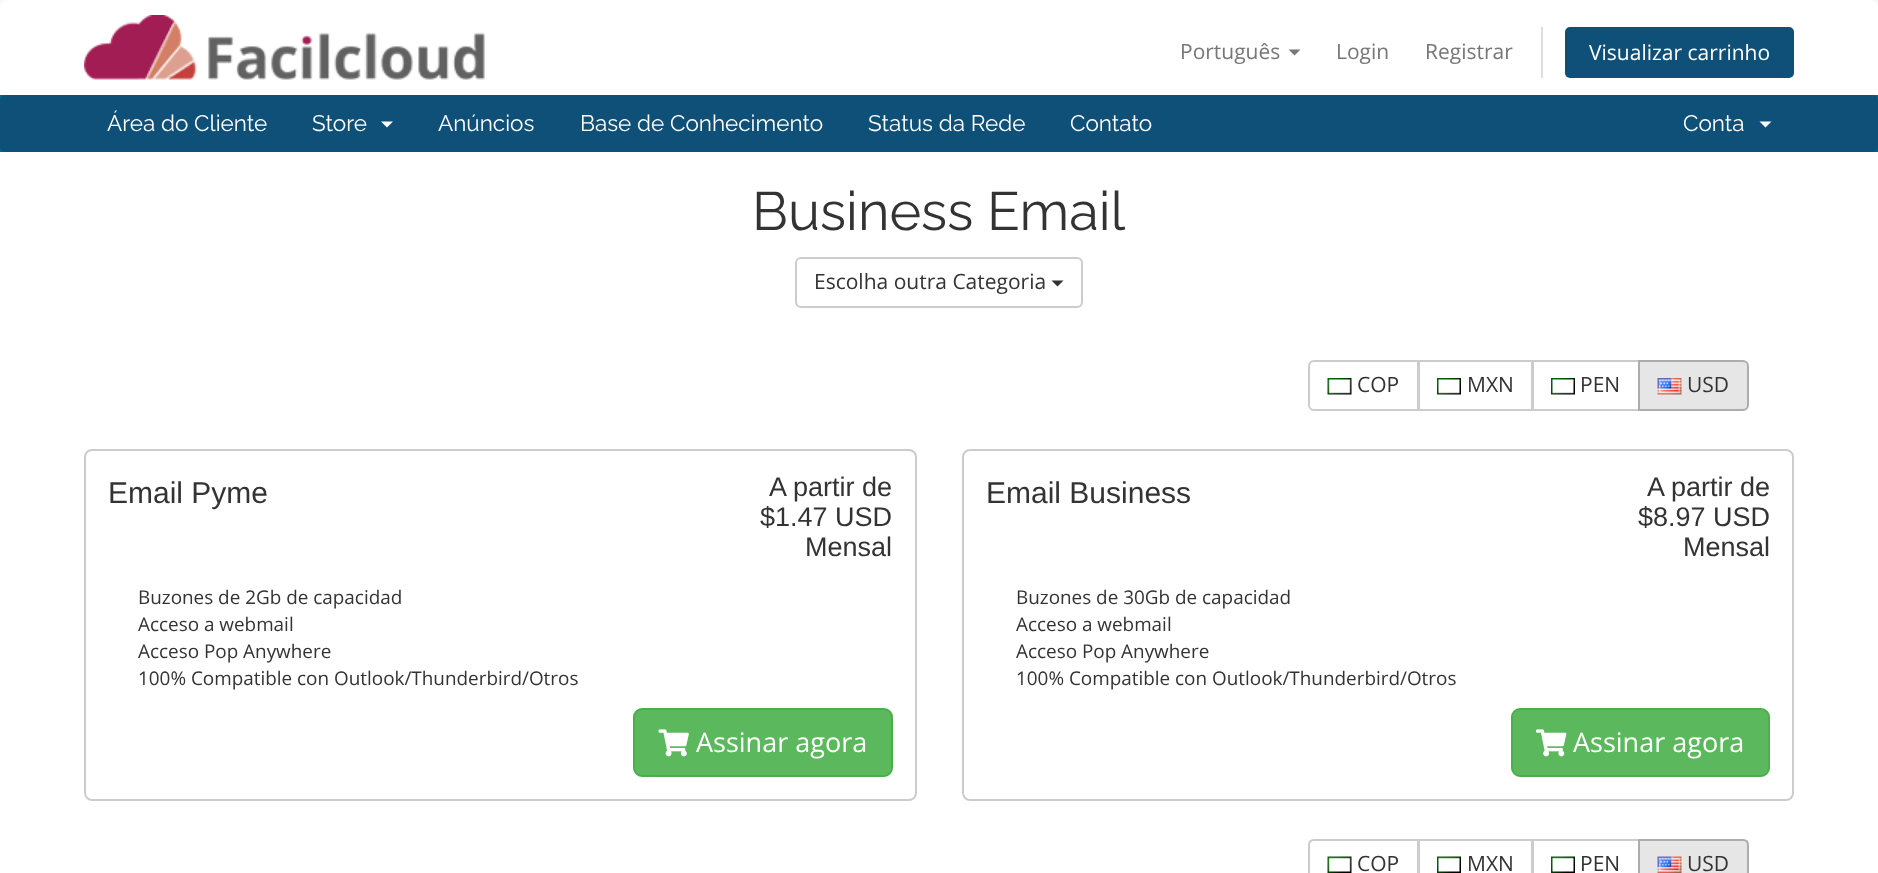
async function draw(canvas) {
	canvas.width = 1878;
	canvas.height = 873;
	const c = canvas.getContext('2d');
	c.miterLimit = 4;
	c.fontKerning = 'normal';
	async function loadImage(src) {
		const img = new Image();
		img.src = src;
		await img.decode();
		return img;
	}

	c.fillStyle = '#f8f8f8';
	c.fillRect(0, 0, 1878, 873);
	c.fillStyle = '#fff';
	c.beginPath();
	c.roundRect(0, 0, 1878, 95, [8, 8, 0, 0]);
	c.fill();
	c.drawImage(await loadImage('img1.png'), 84, 15, 401, 65);
	c.font = '21px Open Sans';
	c.fillStyle = '#777';
	c.fillText('Português', 1180, 59);
	c.beginPath();
	c.moveTo(1288.5, 49.5);
	c.lineTo(1300.5, 49.5);
	c.lineTo(1294.5, 55.5);
	c.closePath();
	c.fill();
	c.fillText('Login', 1336, 59);
	c.fillText('Registrar', 1425, 59);
	c.fillStyle = '#ddd';
	c.fillRect(1541, 27, 2, 51);
	c.fillStyle = '#0e5077';
	c.beginPath();
	c.roundRect(1565, 27, 229, 51, 5);
	c.fill();
	c.fillStyle = '#fff';
	c.fillText('Visualizar carrinho', 1589, 60);
	c.fillStyle = '#006687';
	c.fillRect(0, 95, 1878, 57);
	c.fillStyle = '#0e5077';
	c.beginPath();
	c.roundRect(0, 95, 1878, 57, 6);
	c.fill();
	c.font = '22.5px Raleway';
	c.fillStyle = '#fff';
	c.fillText('Área do Cliente', 107, 131);
	c.fillText('Store', 312, 131);
	c.beginPath();
	c.moveTo(381, 121.5);
	c.lineTo(393, 121.5);
	c.lineTo(387, 127.5);
	c.closePath();
	c.fill();
	for (const [text, x, y] of [
		['Anúncios', 438, 131],
		['Base de Conhecimento', 580, 131],
		['Status da Rede', 868, 131],
		['Contato', 1070, 131],
		['Conta', 1683, 131],
	]) {
		c.fillText(text, x, y);
	}
	c.beginPath();
	c.moveTo(1759.5, 121.5);
	c.lineTo(1771.5, 121.5);
	c.lineTo(1765.5, 127.5);
	c.closePath();
	c.fill();
	c.fillRect(0, 152, 1878, 721);
	c.font = '54px Raleway';
	c.fillStyle = '#333';
	c.fillText('Business Email', 752, 230);
	c.beginPath();
	c.roundRect(796, 258, 286, 49, 5);
	c.strokeStyle = '#ccc';
	c.lineWidth = 2;
	c.stroke();
	c.font = '21px Open Sans';
	c.fillText('Escolha outra Categoria', 814, 289);
	c.beginPath();
	c.moveTo(1051.5, 280.5);
	c.lineTo(1063.5, 280.5);
	c.lineTo(1057.5, 286.5);
	c.closePath();
	c.fill();
	c.beginPath();
	c.roundRect(1309, 361, 109, 49, [5, 0, 0, 5]);
	c.stroke();
	c.drawImage(await loadImage('img2.png'), 1327, 378, 25, 17);
	c.fillText('COP', 1357, 392);
	c.strokeRect(1419, 361, 113, 49);
	c.drawImage(await loadImage('img3.png'), 1437, 378, 24, 17);
	c.fillText('MXN', 1467, 392);
	c.strokeRect(1533, 361, 106, 49);
	c.drawImage(await loadImage('img3.png'), 1551, 378, 24, 17);
	c.fillText('PEN', 1580, 392);
	c.fillStyle = '#e6e6e6';
	c.beginPath();
	c.roundRect(1639, 361, 109, 49, [0, 5, 5, 0]);
	c.fill();
	c.strokeStyle = '#adadad';
	c.stroke();
	c.drawImage(await loadImage('img4.png'), 1657, 378, 25, 17);
	c.fillStyle = '#333';
	c.fillText('USD', 1687, 392);
	c.beginPath();
	c.roundRect(85, 450, 831, 350, 7);
	c.strokeStyle = '#ccc';
	c.stroke();
	c.font = '30px Liberation Sans';
	c.fillText('Email Pyme', 108, 503);
	c.font = '27px Liberation Sans';
	for (const [text, x, y] of [
		['A partir de', 769, 496],
		['$1.47 USD', 760, 526],
		['Mensal', 805, 556],
	]) {
		c.fillText(text, x, y);
	}
	c.font = '18.9px Open Sans';
	for (const [text, x, y] of [
		['Buzones de 2Gb de capacidad', 138, 604],
		['Acceso a webmail', 138, 631],
		['Acceso Pop Anywhere', 138, 658],
		['100% Compatible con Outlook/Thunderbird/Otros', 138, 685],
	]) {
		c.fillText(text, x, y);
	}
	c.fillStyle = '#5cb85c';
	c.beginPath();
	c.roundRect(634, 709, 258, 67, 8);
	c.fill();
	c.strokeStyle = '#4cae4c';
	c.stroke();
	c.drawImage(await loadImage('img5.png'), 658, 729, 31, 28);
	c.font = '27px Open Sans';
	c.fillStyle = '#fff';
	c.fillText('Assinar agora', 696, 752);
	c.beginPath();
	c.roundRect(963, 450, 830, 350, 7);
	c.strokeStyle = '#ccc';
	c.stroke();
	c.font = '30px Liberation Sans';
	c.fillStyle = '#333';
	c.fillText('Email Business', 986, 503);
	c.font = '27px Liberation Sans';
	for (const [text, x, y] of [
		['A partir de', 1647, 496],
		['$8.97 USD', 1638, 526],
		['Mensal', 1683, 556],
	]) {
		c.fillText(text, x, y);
	}
	c.font = '18.9px Open Sans';
	for (const [text, x, y] of [
		['Buzones de 30Gb de capacidad', 1016, 604],
		['Acceso a webmail', 1016, 631],
		['Acceso Pop Anywhere', 1016, 658],
		['100% Compatible con Outlook/Thunderbird/Otros', 1016, 685],
	]) {
		c.fillText(text, x, y);
	}
	c.fillStyle = '#5cb85c';
	c.beginPath();
	c.roundRect(1512, 709, 257, 67, 8);
	c.fill();
	c.strokeStyle = '#4cae4c';
	c.stroke();
	c.drawImage(await loadImage('img6.png'), 1536, 729, 31, 28);
	c.font = '27px Open Sans';
	c.fillStyle = '#fff';
	c.fillText('Assinar agora', 1573, 752);
	c.beginPath();
	c.moveTo(1314, 840);
	c.lineTo(1418, 840);
	c.lineTo(1418, 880);
	c.lineTo(1314, 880);
	c.bezierCurveTo(1311, 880, 1309, 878, 1309, 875);
	c.lineTo(1309, 845);
	c.bezierCurveTo(1309, 842, 1311, 840, 1314, 840);
	c.closePath();
	c.strokeStyle = '#ccc';
	c.stroke();
	c.drawImage(await loadImage('img7.png'), 1327, 856, 25, 17);
	c.font = '21px Open Sans';
	c.fillStyle = '#333';
	c.fillText('COP', 1357, 871);
	c.strokeRect(1419, 840, 113, 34);
	c.drawImage(await loadImage('img8.png'), 1437, 856, 24, 17);
	c.fillText('MXN', 1467, 871);
	c.strokeRect(1533, 840, 106, 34);
	c.drawImage(await loadImage('img8.png'), 1551, 856, 24, 17);
	c.fillText('PEN', 1580, 871);
	c.fillStyle = '#e6e6e6';
	c.beginPath();
	c.moveTo(1639, 840);
	c.lineTo(1743, 840);
	c.bezierCurveTo(1746, 840, 1748, 842, 1748, 845);
	c.lineTo(1748, 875);
	c.bezierCurveTo(1748, 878, 1746, 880, 1743, 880);
	c.lineTo(1639, 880);
	c.closePath();
	c.fill();
	c.strokeStyle = '#adadad';
	c.stroke();
	c.drawImage(await loadImage('img9.png'), 1657, 856, 25, 17);
	c.fillStyle = '#333';
	c.fillText('USD', 1687, 871);
}

draw(document.querySelector('canvas'));
